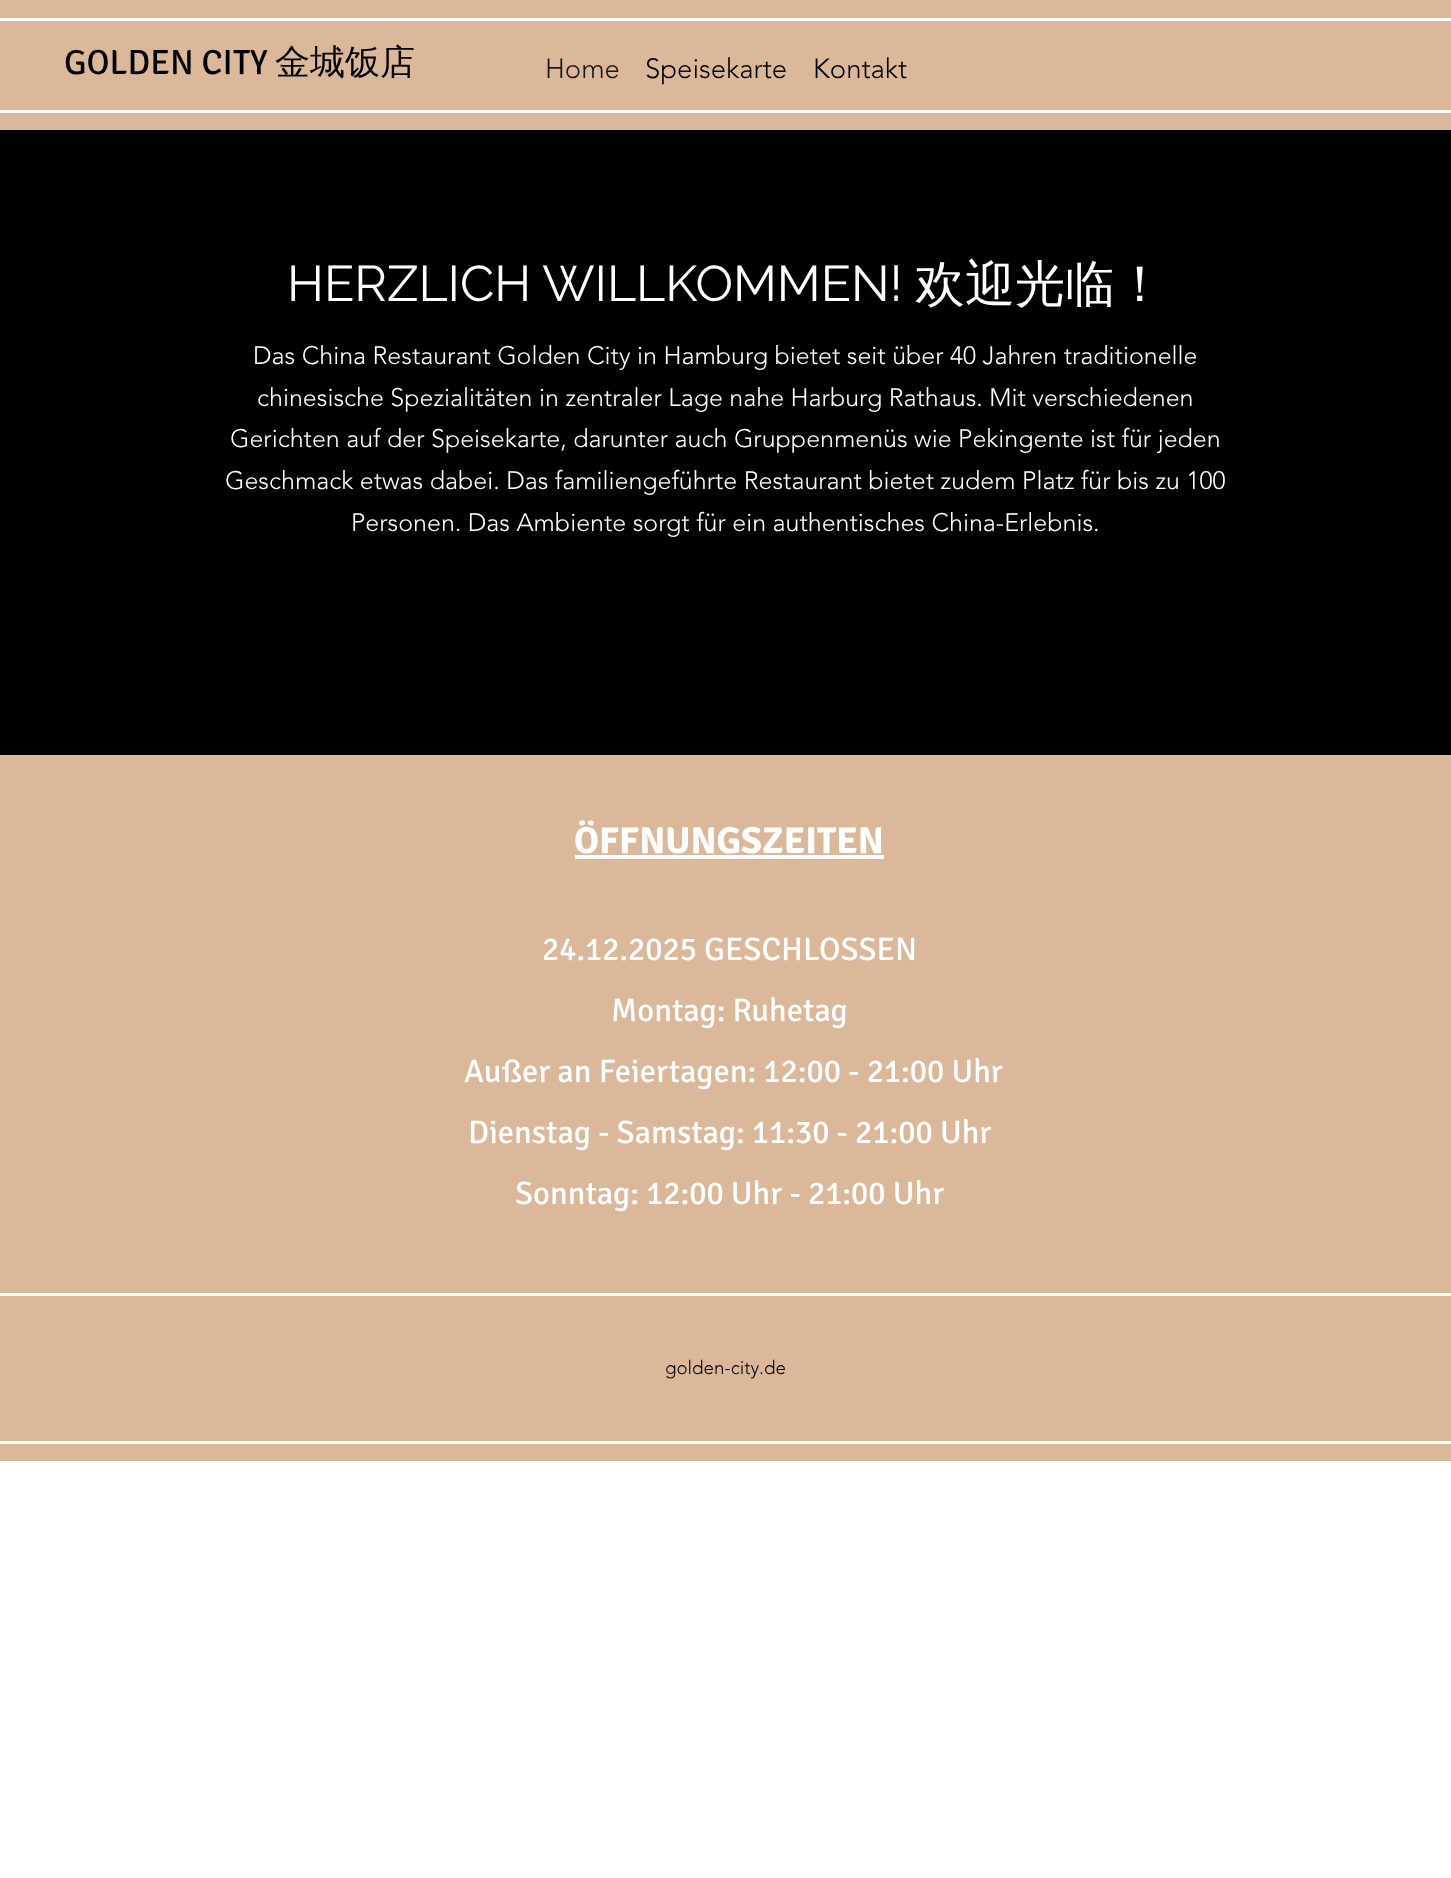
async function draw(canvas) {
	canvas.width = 1451;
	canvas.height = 1878;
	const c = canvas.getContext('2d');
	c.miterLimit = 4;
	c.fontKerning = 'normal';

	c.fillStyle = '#fff';
	c.fillRect(0, 0, 1451, 1878);
	for (const [x, y, w, h, color] of [
		[0, 0, 1451, 130, '#dbb89a'],
		[0, 18, 1451, 3, '#fff'],
		[0, 110, 1451, 3, '#fff'],
	]) {
		c.fillStyle = color;
		c.fillRect(x, y, w, h);
	}
	c.font = '35px Signika';
	c.fillStyle = '#000';
	c.fillText('GOLDEN CITY', 64, 74);
	c.font = '500 35px WenQuanYi Zen Hei';
	c.fillText('金城饭店', 275, 74);
	c.font = '300 27.5px "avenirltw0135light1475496"';
	c.fillStyle = '#191919';
	c.fillText('Home', 545, 78);
	c.fillStyle = '#000';
	c.fillText('Speisekarte', 645, 78);
	c.fillText('Kontakt', 813, 78);
	c.fillRect(0, 130, 1451, 625);
	c.font = '50px Raleway';
	c.fillStyle = '#fff';
	c.fillText('HERZLICH WILLKOMMEN!', 287, 301);
	c.font = '500 50px WenQuanYi Zen Hei';
	c.fillText('欢迎光临！', 915, 301);
	c.font = '300 25px "avenirltw0135light1475496"';
	for (const [text, x, y] of [
		['Das China Restaurant Golden City in Hamburg bietet seit über 40 Jahren traditionelle', 253, 364],
		['chinesische Spezialitäten in zentraler Lage nahe Harburg Rathaus. Mit verschiedenen', 257, 406],
		['Gerichten auf der Speisekarte, darunter auch Gruppenmenüs wie Pekingente ist für jeden', 230, 447],
		['Geschmack etwas dabei. Das familiengeführte Restaurant bietet zudem Platz für bis zu 100', 225, 489],
		['Personen. Das Ambiente sorgt für ein authentisches China-Erlebnis.', 351, 531],
	]) {
		c.fillText(text, x, y);
	}
	c.fillStyle = '#dbb89a';
	c.fillRect(0, 755, 1451, 706);
	c.font = 'bold 37.5px Signika';
	c.fillStyle = '#fff';
	c.fillText('ÖFFNUNGSZEITEN', 574, 853);
	c.fillRect(575, 855, 309, 4);
	c.font = '32.5px Signika';
	for (const [text, x, y] of [
		['24.12.2025 GESCHLOSSEN', 542, 960],
		['Montag: Ruhetag', 611, 1021],
		['Außer an Feiertagen: 12:00 - 21:00 Uhr', 464, 1082],
		['Dienstag - Samstag: 11:30 - 21:00 Uhr', 468, 1143],
		['Sonntag: 12:00 Uhr - 21:00 Uhr', 515, 1204],
	]) {
		c.fillText(text, x, y);
	}
	c.fillRect(0, 1293, 1451, 3);
	c.fillRect(0, 1441, 1451, 3);
	c.font = '300 18.75px "avenirltw0135light1475496"';
	c.fillStyle = '#000';
	c.fillText('golden-city.de', 665, 1374);
}

draw(document.querySelector('canvas'));
